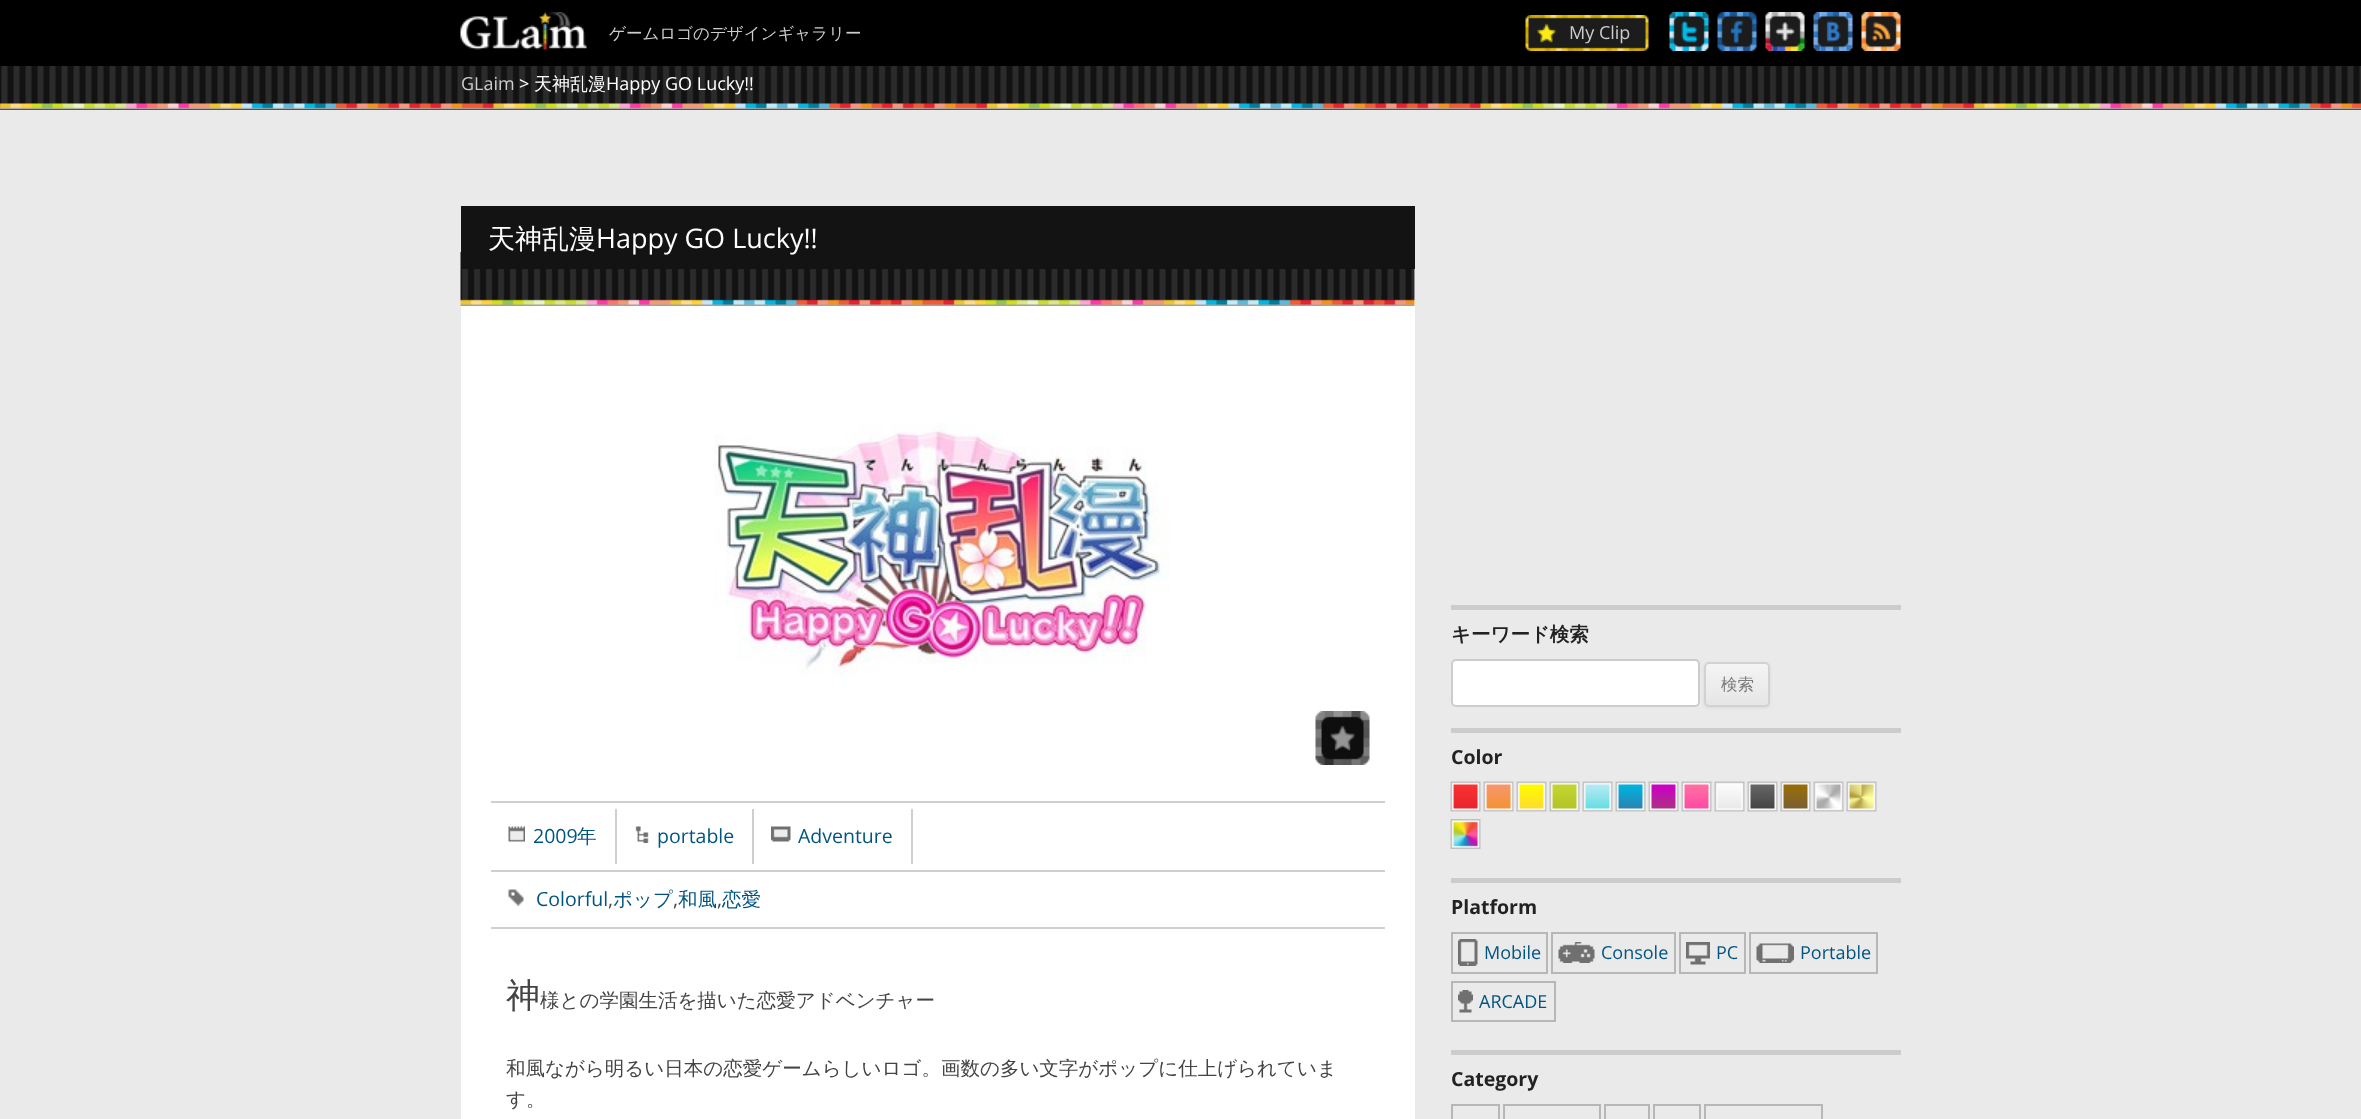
async function draw(canvas) {
	canvas.width = 2361;
	canvas.height = 1119;
	const c = canvas.getContext('2d');
	c.miterLimit = 4;
	c.fontKerning = 'normal';
	async function loadImage(src) {
		const img = new Image();
		img.src = src;
		await img.decode();
		return img;
	}
	let gradient;

	c.fillStyle = '#eaeaea';
	c.fillRect(0, 0, 2361, 1119);
	c.fillStyle = '#000';
	c.fillRect(0, 0, 2361, 110);
	c.drawImage(await loadImage('img1.png'), 460, 12, 127, 38);
	c.font = '500 16.5px WenQuanYi Zen Hei';
	c.fillStyle = '#ccc';
	c.fillText('ゲームロゴのデザインギャラリー', 609, 39);
	c.drawImage(await loadImage('img2.png'), 1525, 15, 124, 36);
	c.font = '18px Open Sans';
	c.fillText('My Clip', 1569, 39);
	c.drawImage(await loadImage('img3.png'), 1669, 12, 40, 39);
	c.drawImage(await loadImage('img4.png'), 1717, 12, 40, 39);
	c.drawImage(await loadImage('img5.png'), 1765, 12, 40, 39);
	c.drawImage(await loadImage('img6.png'), 1813, 12, 40, 39);
	c.drawImage(await loadImage('img7.png'), 1861, 12, 40, 39);
	c.drawImage(await loadImage('img8.png'), 0, 66, 2361, 44);
	c.fillText('GLaim', 461, 90);
	c.fillStyle = '#fff';
	c.fillText('>', 519, 90);
	c.font = '500 18px WenQuanYi Zen Hei';
	c.fillText('天神乱漫', 534, 90);
	c.font = '18px Open Sans';
	c.fillText('Happy GO Lucky!!', 606, 90);
	c.fillRect(461, 269, 954, 850);
	c.drawImage(await loadImage('img9.png'), 460, 252, 955, 54);
	c.fillStyle = '#131313';
	c.fillRect(461, 206, 954, 63);
	c.font = '500 27px WenQuanYi Zen Hei';
	c.fillStyle = '#fff';
	c.fillText('天神乱漫', 488, 248);
	c.font = '27px Open Sans';
	c.fillText('Happy GO Lucky!!', 596, 248);
	c.drawImage(await loadImage('img10.png'), 714, 423, 456, 256);
	c.drawImage(await loadImage('img11.png'), 1315, 711, 55, 54);
	c.fillStyle = '#cfcfcf';
	c.fillRect(491, 801, 894, 2);
	c.drawImage(await loadImage('img12.png'), 508, 826, 17, 16);
	c.font = '19.5px Open Sans';
	c.fillStyle = '#005580';
	c.fillText('2009', 533, 843);
	c.font = '500 19.5px WenQuanYi Zen Hei';
	c.fillText('年', 577, 843);
	c.fillStyle = '#cfcfcf';
	c.fillRect(615, 809, 2, 55);
	c.drawImage(await loadImage('img13.png'), 635, 826, 14, 17);
	c.font = '19.5px Open Sans';
	c.fillStyle = '#005580';
	c.fillText('portable', 657, 843);
	c.fillStyle = '#cfcfcf';
	c.fillRect(752, 809, 2, 55);
	c.drawImage(await loadImage('img14.png'), 771, 826, 20, 16);
	c.fillStyle = '#005580';
	c.fillText('Adventure', 798, 843);
	for (const [x, y, w, h, color] of [
		[911, 809, 2, 55, '#cfcfcf'],
		[491, 870, 894, 2, '#cfcfcf'],
		[491, 927, 894, 2, '#cfcfcf'],
	]) {
		c.fillStyle = color;
		c.fillRect(x, y, w, h);
	}
	c.drawImage(await loadImage('img15.png'), 508, 889, 16, 17);
	c.fillStyle = '#005580';
	c.fillText('Colorful', 536, 906);
	c.fillStyle = '#444';
	c.fillText(',', 608, 906);
	c.font = '500 19.5px WenQuanYi Zen Hei';
	c.fillStyle = '#005580';
	c.fillText('ポップ', 613, 906);
	c.font = '19.5px Open Sans';
	c.fillStyle = '#444';
	c.fillText(',', 673, 906);
	c.font = '500 19.5px WenQuanYi Zen Hei';
	c.fillStyle = '#005580';
	c.fillText('和風', 678, 906);
	c.font = '19.5px Open Sans';
	c.fillStyle = '#444';
	c.fillText(',', 717, 906);
	c.font = '500 19.5px WenQuanYi Zen Hei';
	c.fillStyle = '#005580';
	c.fillText('恋愛', 722, 906);
	c.font = '100 34px Noto Sans';
	c.fillStyle = '#444';
	c.fillText('神', 506, 1007);
	c.font = '500 19.5px WenQuanYi Zen Hei';
	for (const [text, x, y] of [
		['様との学園生活を描いた恋愛アドベンチャー', 540, 1007],
		['和風ながら明るい日本の恋愛ゲームらしいロゴ。画数の多い文字がポップに仕上げられていま', 506, 1075],
		['す。', 506, 1106],
	]) {
		c.fillText(text, x, y);
	}
	c.fillStyle = '#ccc';
	c.fillRect(1451, 605, 450, 5);
	c.font = 'bold 19.5px WenQuanYi Zen Hei';
	c.fillStyle = '#222';
	c.fillText('キーワード検索', 1451, 641);
	c.fillStyle = '#fff';
	c.beginPath();
	c.roundRect(1452, 660, 247, 46, 4);
	c.fill();
	c.strokeStyle = '#ccc';
	c.lineWidth = 2;
	c.stroke();
	c.fillStyle = '#4040401a';
	c.filter = 'blur(1.5px)';
	c.beginPath();
	c.roundRect(1704, 663, 66, 45, 5);
	c.fill();
	c.filter = 'none';
	c.save();
	c.beginPath();
	c.roundRect(1704, 662, 66, 45, 5);
	c.clip();
	gradient = c.createLinearGradient(1737, 663, 1737, 705);
	gradient.addColorStop(0, '#f4f4f4');
	gradient.addColorStop(1, '#e6e6e6');
	c.fillStyle = gradient;
	c.fillRect(1704, 663, 66, 42);
	c.restore();
	c.beginPath();
	c.roundRect(1705, 663, 64, 43, 4);
	c.strokeStyle = '#d2d2d2';
	c.stroke();
	c.font = '500 16.5px WenQuanYi Zen Hei';
	c.fillStyle = '#7c7c7c';
	c.fillText('検索', 1721, 690);
	c.fillStyle = '#ccc';
	c.fillRect(1451, 728, 450, 5);
	c.font = 'bold 19.5px Open Sans';
	c.fillStyle = '#222';
	c.fillText('Color', 1451, 764);
	c.drawImage(await loadImage('img16.png'), 1450, 781, 31, 31);
	c.drawImage(await loadImage('img17.png'), 1483, 781, 31, 31);
	c.drawImage(await loadImage('img18.png'), 1516, 781, 31, 31);
	c.drawImage(await loadImage('img19.png'), 1549, 781, 31, 31);
	c.drawImage(await loadImage('img20.png'), 1582, 781, 31, 31);
	c.drawImage(await loadImage('img21.png'), 1615, 781, 31, 31);
	c.drawImage(await loadImage('img22.png'), 1648, 781, 31, 31);
	c.drawImage(await loadImage('img23.png'), 1681, 781, 31, 31);
	c.drawImage(await loadImage('img24.png'), 1714, 781, 31, 31);
	c.drawImage(await loadImage('img25.png'), 1747, 781, 31, 31);
	c.drawImage(await loadImage('img26.png'), 1780, 781, 31, 31);
	c.drawImage(await loadImage('img27.png'), 1813, 781, 31, 31);
	c.drawImage(await loadImage('img28.png'), 1846, 781, 31, 31);
	c.drawImage(await loadImage('img29.png'), 1450, 819, 31, 30);
	c.fillStyle = '#ccc';
	c.fillRect(1451, 878, 450, 5);
	c.fillStyle = '#222';
	c.fillText('Platform', 1451, 914);
	c.strokeStyle = '#b7b7b7';
	c.strokeRect(1452, 933, 95, 40);
	c.drawImage(await loadImage('img30.png'), 1458, 939, 20, 27);
	c.font = '18px Open Sans';
	c.fillStyle = '#005580';
	c.fillText('Mobile', 1484, 959);
	c.strokeRect(1552, 933, 123, 40);
	c.drawImage(await loadImage('img31.png'), 1558, 942, 37, 21);
	c.fillText('Console', 1601, 959);
	c.strokeRect(1680, 933, 65, 40);
	c.drawImage(await loadImage('img32.png'), 1686, 942, 24, 23);
	c.fillText('PC', 1716, 959);
	c.strokeRect(1750, 933, 127, 40);
	c.drawImage(await loadImage('img33.png'), 1756, 943, 38, 20);
	c.fillText('Portable', 1800, 959);
	c.strokeRect(1452, 982, 103, 39);
	c.drawImage(await loadImage('img34.png'), 1458, 990, 15, 23);
	c.fillText('ARCADE', 1479, 1008);
	c.fillStyle = '#ccc';
	c.fillRect(1451, 1050, 450, 5);
	c.font = 'bold 19.5px Open Sans';
	c.fillStyle = '#222';
	c.fillText('Category', 1451, 1086);
	c.strokeRect(1452, 1105, 47, 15);
	c.strokeRect(1504, 1105, 96, 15);
	c.strokeRect(1605, 1105, 44, 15);
	c.strokeRect(1654, 1105, 46, 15);
	c.strokeRect(1705, 1105, 117, 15);
}

draw(document.querySelector('canvas'));
